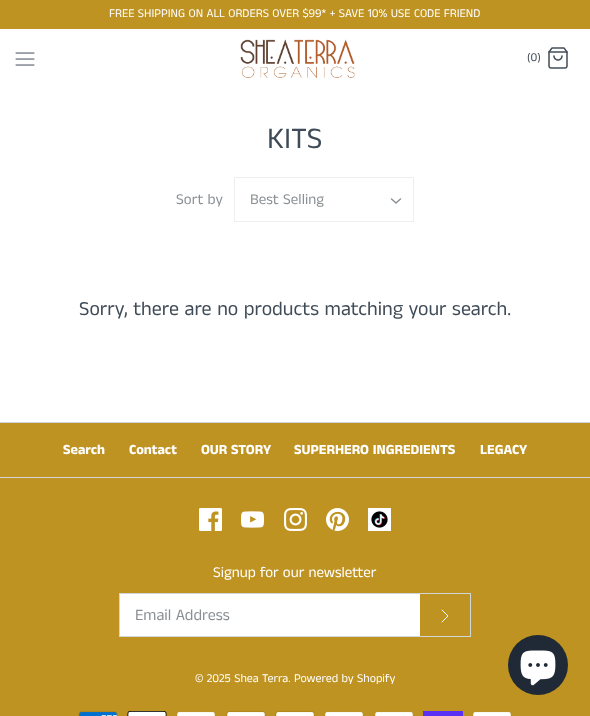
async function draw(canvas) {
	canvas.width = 590;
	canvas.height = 716;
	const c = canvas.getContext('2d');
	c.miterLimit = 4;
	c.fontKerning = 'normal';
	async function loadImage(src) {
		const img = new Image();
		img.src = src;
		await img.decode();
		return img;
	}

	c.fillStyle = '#fff';
	c.fillRect(0, 0, 590, 716);
	c.fillStyle = '#bf9321';
	c.fillRect(0, 0, 590, 29);
	c.font = '12px Anek Tamil';
	c.fillStyle = '#fff';
	c.fillText('FREE SHIPPING ON ALL ORDERS OVER $99* + SAVE 10% USE CODE FRIEND', 109, 17);
	c.drawImage(await loadImage('img1.png'), 15, 52, 20, 14);
	c.drawImage(await loadImage('img2.png'), 240, 39, 115, 39);
	c.fillStyle = '#3f4b57';
	c.fillText('(0)', 527, 61);
	c.drawImage(await loadImage('img3.png'), 548, 47, 20, 22);
	c.font = '30px Anek Tamil';
	c.fillText('KITS', 267, 148);
	c.font = '15px Anek Tamil';
	c.fillStyle = '#8a8f93';
	c.fillText('Sort by', 176, 204);
	c.strokeStyle = '#edeeee';
	c.strokeRect(234.5, 177.5, 179, 44);
	c.fillText('Best Selling', 250, 204);
	c.beginPath();
	c.moveTo(391.5, 199);
	c.lineTo(396, 203);
	c.lineTo(400.5, 199);
	c.strokeStyle = '#8a8f93';
	c.lineWidth = 1.5;
	c.lineCap = 'round';
	c.lineJoin = 'round';
	c.stroke();
	c.font = '20px Anek Tamil';
	c.fillStyle = '#3f4b57';
	c.fillText('Sorry, there are no products matching your search.', 79, 315);
	for (const [x, y, w, h, color] of [
		[0, 423, 590, 293, '#bf9321'],
		[0, 422, 590, 1, '#d1d6d9'],
		[0, 477, 590, 1, '#d1d6d9'],
	]) {
		c.fillStyle = color;
		c.fillRect(x, y, w, h);
	}
	c.font = 'bold 14px Anek Tamil';
	c.fillStyle = '#fff';
	for (const [text, x, y] of [
		['Search', 63, 454],
		['Contact', 129, 454],
		['OUR STORY', 201, 454],
		['SUPERHERO INGREDIENTS', 294, 454],
		['LEGACY', 480, 454],
	]) {
		c.fillText(text, x, y);
	}
	c.drawImage(await loadImage('img4.png'), 199, 508, 23, 23);
	c.drawImage(await loadImage('img5.png'), 241, 511, 23, 17);
	c.drawImage(await loadImage('img6.png'), 284, 508, 23, 23);
	c.drawImage(await loadImage('img7.png'), 326, 508, 23, 23);
	c.drawImage(await loadImage('img8.png'), 368, 508, 23, 23);
	c.font = '15px Anek Tamil';
	c.fillText('Signup for our newsletter', 213, 577);
	c.fillRect(120, 594, 300, 42);
	c.strokeStyle = '#d1d6d9';
	c.lineWidth = 1;
	c.lineJoin = 'miter';
	c.strokeRect(119.5, 593.5, 351, 43);
	c.font = '16px Anek Tamil';
	c.fillStyle = '#8a8f93';
	c.fillText('Email Address', 135, 620);
	c.beginPath();
	c.moveTo(442, 622);
	c.lineTo(448, 616);
	c.lineTo(442, 610);
	c.strokeStyle = '#fff';
	c.lineJoin = 'round';
	c.stroke();
	c.font = '12px Anek Tamil';
	c.fillStyle = '#fff';
	c.fillText('© 2025 Shea Terra. Powered by Shopify', 195, 682);
	c.drawImage(await loadImage('img9.png'), 78, 711, 40, 5);
	c.drawImage(await loadImage('img10.png'), 127, 711, 40, 5);
	c.drawImage(await loadImage('img11.png'), 176, 711, 40, 5);
	c.drawImage(await loadImage('img12.png'), 226, 711, 40, 5);
	c.drawImage(await loadImage('img12.png'), 275, 711, 40, 5);
	c.drawImage(await loadImage('img11.png'), 324, 711, 40, 5);
	c.drawImage(await loadImage('img11.png'), 374, 711, 40, 5);
	c.fillStyle = '#5a31f4';
	c.fillRect(423, 711, 40, 5);
	c.drawImage(await loadImage('img11.png'), 472, 711, 40, 5);
	c.fillStyle = '#202a36';
	c.beginPath();
	c.arc(538, 665, 30, 0, 2 * Math.PI);
	c.fill();
	c.drawImage(await loadImage('img13.png'), 520, 650, 36, 36);
}

draw(document.querySelector('canvas'));
